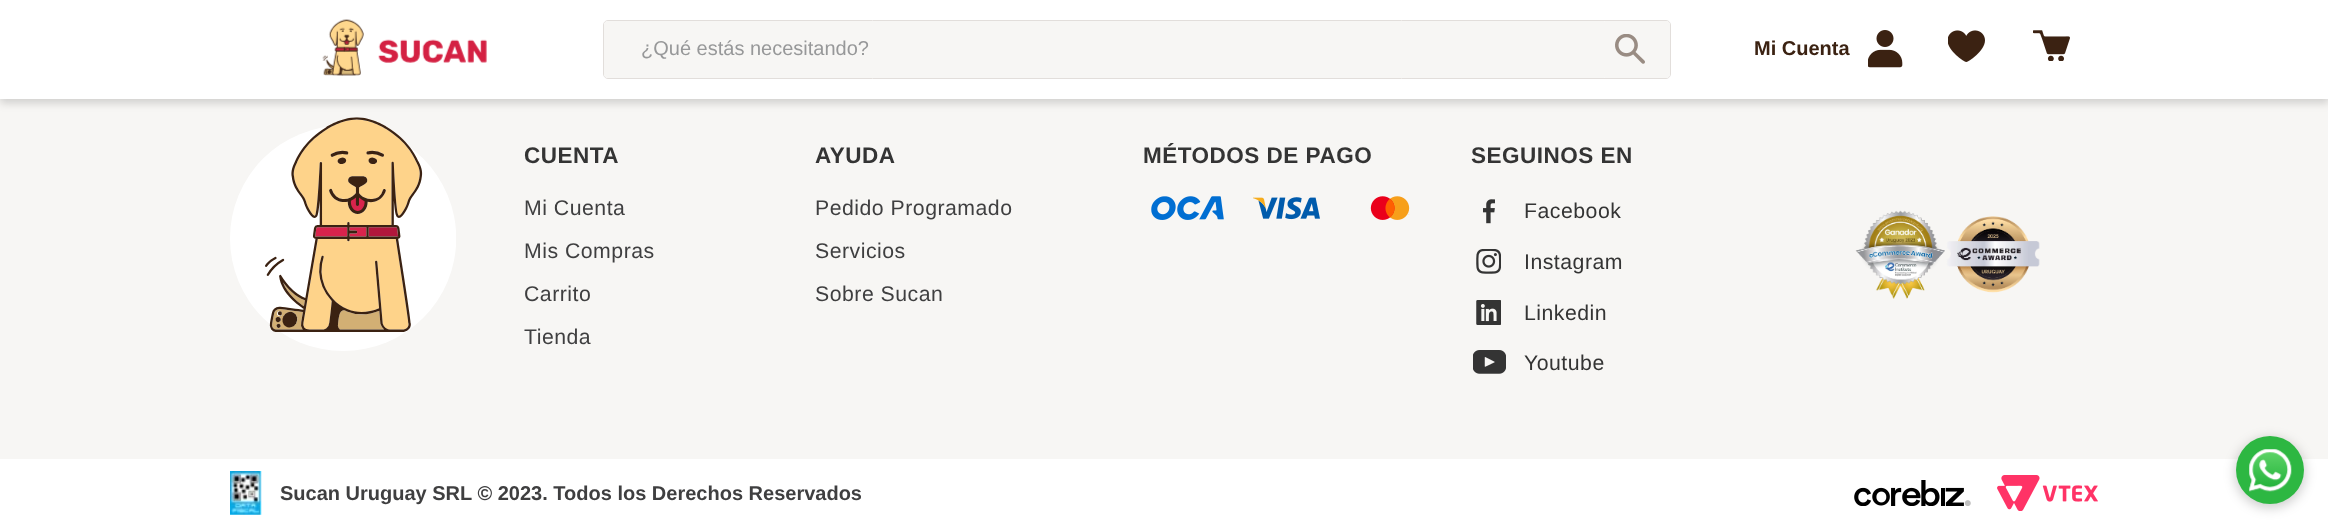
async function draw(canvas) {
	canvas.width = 2328;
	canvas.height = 528;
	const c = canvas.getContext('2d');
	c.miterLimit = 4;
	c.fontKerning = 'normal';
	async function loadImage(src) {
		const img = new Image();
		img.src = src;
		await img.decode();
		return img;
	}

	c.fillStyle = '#f7f6f4';
	c.fillRect(0, 0, 2328, 528);
	c.fillStyle = '#00000029';
	c.filter = 'blur(4px)';
	c.beginPath();
	c.rect(0, 4, 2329, 99);
	c.fill();
	c.filter = 'none';
	c.fillStyle = '#fff';
	c.fillRect(0, 0, 2328, 99);
	c.drawImage(await loadImage('img1.png'), 322, 19, 165, 57);
	c.beginPath();
	c.roundRect(603.5, 20.5, 1067, 58, 4.5);
	c.strokeStyle = '#e2dedb';
	c.stroke();
	c.fillStyle = '#f7f6f4';
	c.beginPath();
	c.roundRect(604, 21, 1001, 57, [4, 1, 1, 4]);
	c.fill();
	c.font = '20px Liberation Sans';
	c.fillStyle = '#979899';
	c.fillText('¿Qué estás necesitando?', 641, 55);
	c.fillStyle = '#f7f6f4';
	c.beginPath();
	c.roundRect(1605, 21, 65, 57, [0, 4, 4, 0]);
	c.fill();
	c.drawImage(await loadImage('img2.png'), 1615, 34, 30, 30);
	c.font = 'bold 20px Liberation Sans';
	c.fillStyle = '#3b2212';
	c.fillText('Mi Cuenta', 1754, 55);
	c.drawImage(await loadImage('img3.png'), 1868, 30, 35, 38);
	c.drawImage(await loadImage('img4.png'), 1948, 30, 37, 32);
	c.drawImage(await loadImage('img5.png'), 2033, 30, 37, 31);
	c.drawImage(await loadImage('img6.png'), 230, 117, 226, 234);
	c.letterSpacing = '0.5px';
	c.font = 'bold 22.5px Liberation Sans';
	c.fillStyle = '#343434';
	c.fillText('CUENTA', 524, 163);
	c.font = '21.25px Liberation Sans';
	c.fillStyle = '#3f3f40';
	for (const [text, x, y] of [
		['Mi Cuenta', 524, 215],
		['Mis Compras', 524, 258],
		['Carrito', 524, 301],
		['Tienda', 524, 344],
	]) {
		c.fillText(text, x, y);
	}
	c.font = 'bold 22.5px Liberation Sans';
	c.fillStyle = '#343434';
	c.fillText('AYUDA', 815, 163);
	c.font = '21.25px Liberation Sans';
	c.fillStyle = '#3f3f40';
	for (const [text, x, y] of [
		['Pedido Programado', 815, 215],
		['Servicios', 815, 258],
		['Sobre Sucan', 815, 301],
	]) {
		c.fillText(text, x, y);
	}
	c.font = 'bold 22.5px Liberation Sans';
	c.fillStyle = '#343434';
	c.fillText('MÉTODOS DE PAGO', 1143, 163);
	c.drawImage(await loadImage('img7.png'), 1151, 196, 73, 24);
	c.drawImage(await loadImage('img8.png'), 1253, 197, 67, 23);
	c.drawImage(await loadImage('img9.png'), 1370, 196, 40, 24);
	c.fillText('SEGUINOS EN', 1471, 163);
	c.drawImage(await loadImage('img10.png'), 1483, 199, 12, 25);
	c.font = '21.25px Liberation Sans';
	c.fillText('Facebook', 1524, 218);
	c.drawImage(await loadImage('img11.png'), 1476, 249, 25, 25);
	c.fillText('Instagram', 1524, 269);
	c.drawImage(await loadImage('img12.png'), 1476, 300, 25, 25);
	c.fillText('Linkedin', 1524, 320);
	c.drawImage(await loadImage('img13.png'), 1473, 350, 33, 24);
	c.fillText('Youtube', 1524, 370);
	c.drawImage(await loadImage('img14.png'), 1855, 210, 185, 89);
	c.fillStyle = '#fff';
	c.fillRect(0, 459, 2328, 69);
	c.drawImage(await loadImage('img15.png'), 230, 471, 32, 44);
	c.letterSpacing = '0px';
	c.font = 'bold 20px Liberation Sans';
	c.fillStyle = '#3f3f40';
	c.fillText('Sucan Uruguay SRL © 2023. Todos los Derechos Reservados', 280, 500);
	c.drawImage(await loadImage('img16.png'), 1854, 480, 117, 26);
	c.drawImage(await loadImage('img17.png'), 1997, 475, 101, 36);
	c.fillStyle = '#00000033';
	c.filter = 'blur(6px)';
	c.beginPath();
	c.roundRect(2235, 438, 70, 70, 35);
	c.fill();
	c.filter = 'none';
	c.fillStyle = '#2db742';
	c.beginPath();
	c.arc(2270, 470, 34, 0, 2 * Math.PI);
	c.fill();
	c.drawImage(await loadImage('img18.png'), 2249, 449, 43, 43);
}

draw(document.querySelector('canvas'));
